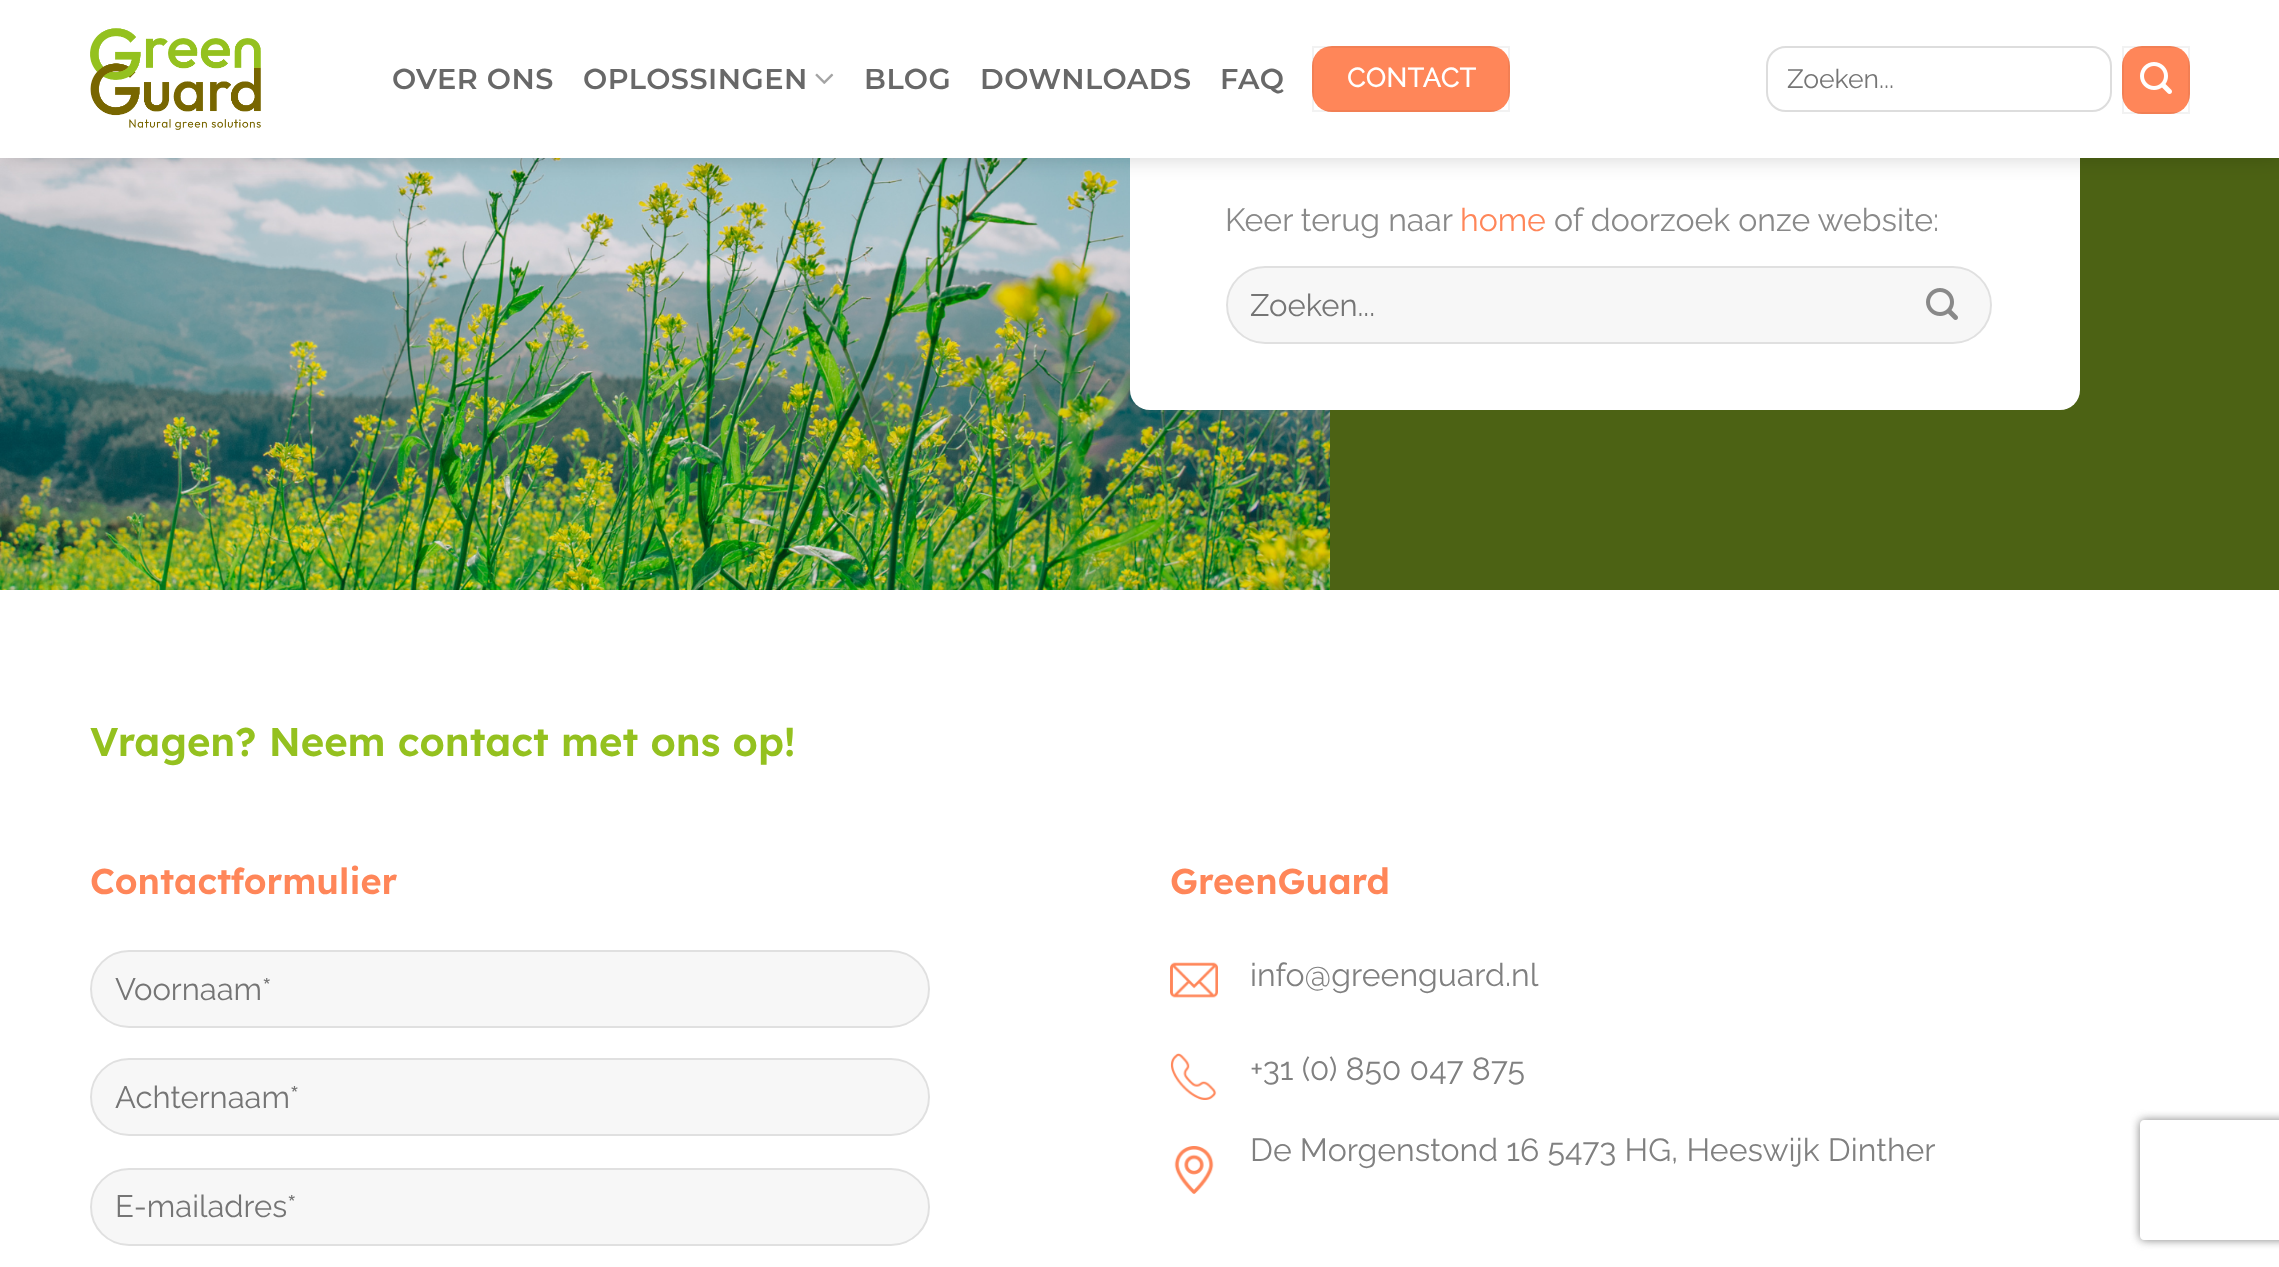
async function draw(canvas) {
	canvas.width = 2279;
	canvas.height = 1267;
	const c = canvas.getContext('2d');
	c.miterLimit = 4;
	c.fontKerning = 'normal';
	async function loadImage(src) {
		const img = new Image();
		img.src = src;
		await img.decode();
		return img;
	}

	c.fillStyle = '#fff';
	c.fillRect(0, 0, 2279, 1267);
	c.fillStyle = '#4c6214';
	c.fillRect(1330, 158, 949, 432);
	c.drawImage(await loadImage('img4.png'), 0, 158, 1330, 432);
	c.fillStyle = '#fff';
	c.beginPath();
	c.roundRect(1130, -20, 950, 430, 20);
	c.fill();
	c.fillStyle = '#00000026';
	c.filter = 'blur(10px)';
	c.beginPath();
	c.rect(2, 2, 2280, 158);
	c.fill();
	c.filter = 'none';
	c.fillStyle = '#fff';
	c.fillRect(0, 0, 2279, 158);
	c.drawImage(await loadImage('img1.png'), 90, 28, 171, 102);
	c.letterSpacing = '0.5px';
	c.font = '100 28.75px Montserrat';
	c.fillStyle = '#686868';
	c.fillText('OVER ONS', 392, 89);
	c.fillText('OPLOSSINGEN', 583, 89);
	c.drawImage(await loadImage('img2.png'), 815, 73, 19, 11);
	for (const [text, x, y] of [
		['BLOG', 864, 89],
		['DOWNLOADS', 980, 89],
		['FAQ', 1220, 89],
	]) {
		c.fillText(text, x, y);
	}
	c.fillStyle = '#ff8659';
	c.beginPath();
	c.roundRect(1312, 46, 198, 66, 20);
	c.fill();
	c.strokeStyle = '#0000000d';
	c.lineWidth = 2;
	c.strokeRect(1313, 47, 196, 64);
	c.letterSpacing = '0.75px';
	c.font = 'bold 26.5px Raleway';
	c.fillStyle = '#fff';
	c.fillText('CONTACT', 1347, 87);
	c.beginPath();
	c.roundRect(1767, 47, 344, 64, 19);
	c.strokeStyle = '#ddd';
	c.stroke();
	c.letterSpacing = '0px';
	c.font = '100 26.5px Raleway';
	c.fillStyle = '#757575';
	c.fillText('Zoeken...', 1787, 88);
	c.fillStyle = '#ff8659';
	c.beginPath();
	c.roundRect(2122, 46, 68, 68, 20);
	c.fill();
	c.strokeStyle = '#0000000d';
	c.strokeRect(2123, 47, 66, 66);
	c.drawImage(await loadImage('img3.png'), 2140, 62, 32, 32);
	c.font = '100 32px Raleway';
	c.fillStyle = '#898989';
	c.fillText('Keer terug naar', 1225, 231);
	c.fillStyle = '#ff8659';
	c.fillText('home', 1460, 231);
	c.fillStyle = '#898989';
	c.fillText('of doorzoek onze website:', 1554, 231);
	c.fillStyle = '#f7f7f7';
	c.beginPath();
	c.roundRect(1226, 266, 766, 78, 39);
	c.fill();
	c.beginPath();
	c.roundRect(1227, 267, 764, 76, 38);
	c.strokeStyle = '#00000017';
	c.stroke();
	c.font = '100 31px Raleway';
	c.fillStyle = '#757575';
	c.fillText('Zoeken...', 1250, 316);
	c.drawImage(await loadImage('img5.png'), 1926, 288, 32, 32);
	c.font = '600 40px Lexend';
	c.fillStyle = '#94c11f';
	c.fillText('Vragen? Neem contact met ons op!', 90, 756);
	c.font = '600 36px Lexend';
	c.fillStyle = '#ff8659';
	c.fillText('Contactformulier', 90, 894);
	c.fillStyle = '#f7f7f7';
	c.beginPath();
	c.roundRect(90, 950, 840, 78, 39);
	c.fill();
	c.beginPath();
	c.roundRect(91, 951, 838, 76, 38);
	c.stroke();
	c.font = '100 31px Raleway';
	c.fillStyle = '#757575';
	c.fillText('Voornaam*', 115, 1000);
	c.fillStyle = '#f7f7f7';
	c.beginPath();
	c.roundRect(90, 1058, 840, 78, 39);
	c.fill();
	c.beginPath();
	c.roundRect(91, 1059, 838, 76, 38);
	c.stroke();
	c.fillStyle = '#757575';
	c.fillText('Achternaam*', 115, 1108);
	c.fillStyle = '#f7f7f7';
	c.beginPath();
	c.roundRect(90, 1168, 840, 78, 39);
	c.fill();
	c.beginPath();
	c.roundRect(91, 1169, 838, 76, 38);
	c.stroke();
	c.fillStyle = '#757575';
	c.fillText('E-mailadres*', 115, 1217);
	c.font = '600 36px Lexend';
	c.fillStyle = '#ff8659';
	c.fillText('GreenGuard', 1170, 894);
	c.drawImage(await loadImage('img6.png'), 1170, 962, 48, 36);
	c.font = '100 32px Raleway';
	c.fillStyle = '#808080';
	c.fillText('info@greenguard.nl', 1250, 986);
	c.drawImage(await loadImage('img7.png'), 1170, 1053, 47, 47);
	c.fillText('+31 (0) 850 047 875', 1250, 1080);
	c.drawImage(await loadImage('img8.png'), 1174, 1146, 40, 48);
	c.fillText('De Morgenstond 16 5473 HG, Heeswijk Dinther', 1250, 1161);
	c.save();
	c.beginPath();
	c.moveTo(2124, 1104);
	c.lineTo(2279, 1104);
	c.lineTo(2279, 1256);
	c.lineTo(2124, 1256);
	c.closePath();
	c.moveTo(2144, 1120);
	c.lineTo(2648, 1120);
	c.bezierCurveTo(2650, 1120, 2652, 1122, 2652, 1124);
	c.lineTo(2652, 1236);
	c.bezierCurveTo(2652, 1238, 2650, 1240, 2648, 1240);
	c.lineTo(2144, 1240);
	c.bezierCurveTo(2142, 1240, 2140, 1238, 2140, 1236);
	c.lineTo(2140, 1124);
	c.bezierCurveTo(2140, 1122, 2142, 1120, 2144, 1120);
	c.closePath();
	c.clip('evenodd');
	c.filter = 'blur(5px)';
	c.beginPath();
	c.roundRect(2140, 1120, 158, 120, 4);
	c.fill();
	c.filter = 'none';
	c.restore();
}

draw(document.querySelector('canvas'));
